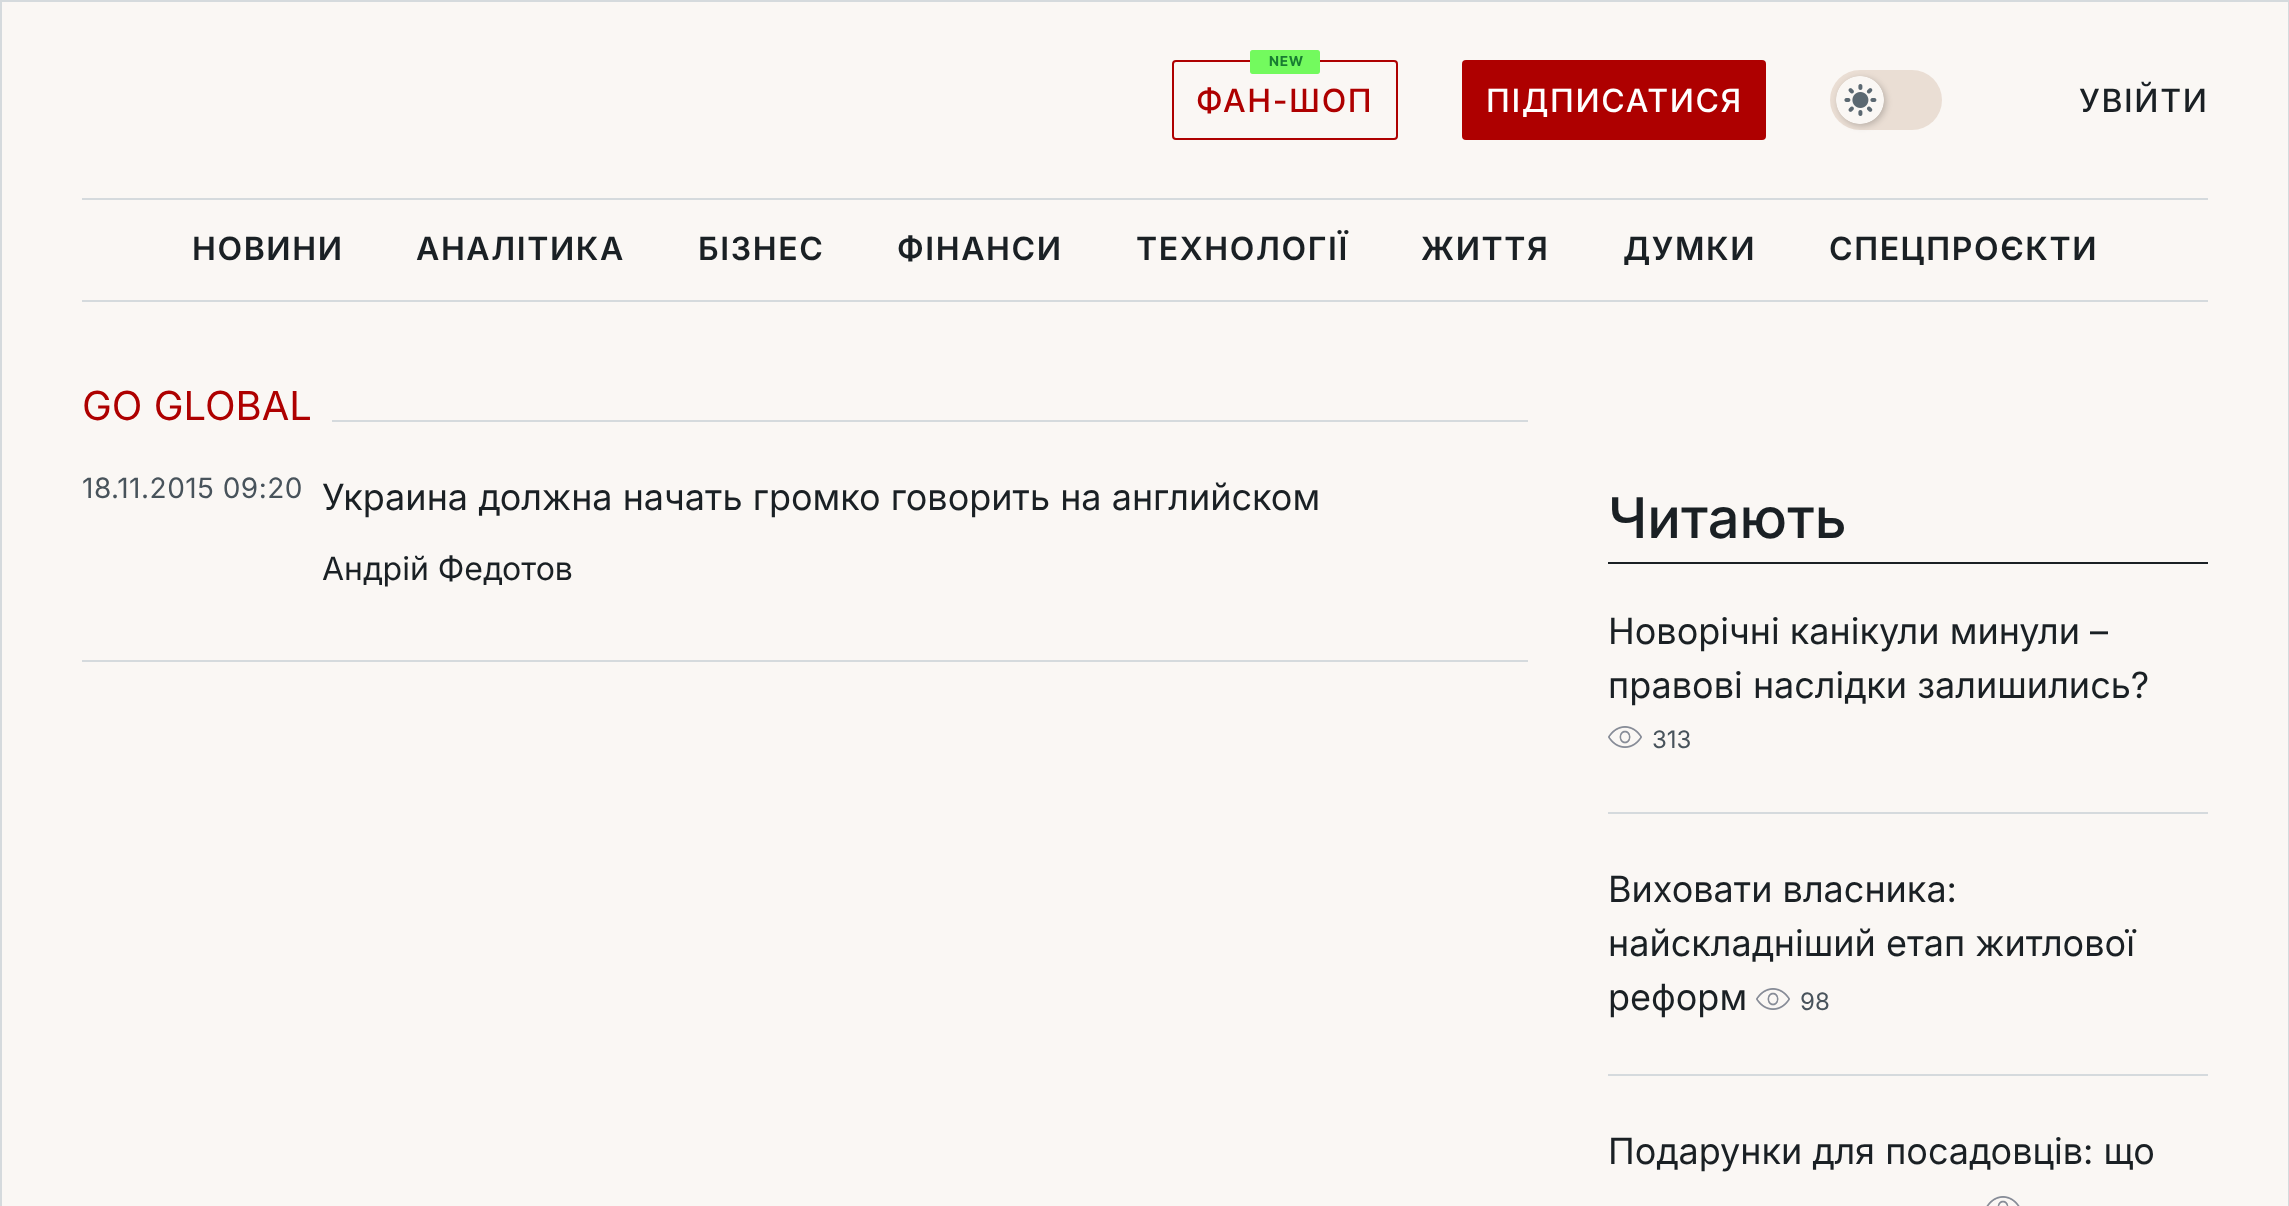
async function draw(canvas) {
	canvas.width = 2289;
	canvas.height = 1206;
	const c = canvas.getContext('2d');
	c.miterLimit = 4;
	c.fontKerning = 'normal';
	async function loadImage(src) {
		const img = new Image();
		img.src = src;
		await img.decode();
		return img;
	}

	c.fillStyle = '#faf7f4';
	c.fillRect(0, 0, 2289, 1206);
	for (const [x, y, w, h, color] of [
		[0, 0, 2289, 2, '#d5dadd'],
		[2288, 0, 1, 1206, '#d5dadd'],
		[0, 0, 2, 1206, '#d5dadd'],
		[82, 198, 2126, 2, '#d5dadd'],
	]) {
		c.fillStyle = color;
		c.fillRect(x, y, w, h);
	}
	c.beginPath();
	c.roundRect(1173, 61, 224, 78, 3);
	c.strokeStyle = '#ae0000';
	c.lineWidth = 2;
	c.stroke();
	c.drawImage(await loadImage('img1.png'), 1250, 50, 70, 24);
	c.letterSpacing = '1.6px';
	c.font = '500 32px Inter';
	c.fillStyle = '#ae0000';
	c.fillText('ФАН-ШОП', 1196, 112);
	c.beginPath();
	c.roundRect(1462, 60, 304, 80, 4);
	c.fill();
	c.fillStyle = '#fff';
	c.fillText('ПІДПИСАТИСЯ', 1486, 112);
	c.fillStyle = '#eaded4';
	c.beginPath();
	c.roundRect(1830, 70, 112, 60, 30);
	c.fill();
	c.fillStyle = '#00000033';
	c.filter = 'blur(3px)';
	c.beginPath();
	c.roundRect(1838, 78, 48, 48, 24);
	c.fill();
	c.filter = 'none';
	c.drawImage(await loadImage('img2.png'), 1836, 76, 48, 48);
	c.fillStyle = '#1a2024';
	c.fillText('УВІЙТИ', 2079, 112);
	c.fillStyle = '#d5dadd';
	c.fillRect(82, 300, 2126, 2);
	c.font = '600 32px Inter';
	c.fillStyle = '#1a2024';
	for (const [text, x, y] of [
		['НОВИНИ', 192, 260],
		['АНАЛІТИКА', 416, 260],
		['БІЗНЕС', 698, 260],
		['ФІНАНСИ', 897, 260],
		['ТЕХНОЛОГІЇ', 1136, 260],
		['ЖИТТЯ', 1421, 260],
		['ДУМКИ', 1623, 260],
		['СПЕЦПРОЄКТИ', 1829, 260],
	]) {
		c.fillText(text, x, y);
	}
	c.letterSpacing = '0px';
	c.font = '40px Inter';
	c.fillStyle = '#ae0000';
	c.fillText('GO GLOBAL', 82, 420);
	c.fillStyle = '#d5dadd';
	c.fillRect(332, 420, 1196, 2);
	c.fillRect(82, 660, 1446, 2);
	c.letterSpacing = '0.5px';
	c.font = '28px Inter';
	c.fillStyle = '#48535b';
	c.fillText('18.11.2015 09:20', 82, 498);
	c.letterSpacing = '0px';
	c.font = '36px Inter';
	c.fillStyle = '#1a2024';
	c.fillText('Украина должна начать громко говорить на английском', 322, 510);
	c.font = '32px Inter';
	c.fillText('Андрій Федотов', 322, 580);
	c.fillRect(1608, 562, 600, 2);
	c.font = '500 56px Inter';
	c.fillText('Читають', 1608, 538);
	c.fillStyle = '#d5dadd';
	c.fillRect(1608, 812, 600, 2);
	c.font = '36px Inter';
	c.fillStyle = '#1a2024';
	c.fillText('Новорічні канікули минули –', 1608, 644);
	c.fillText('правові наслідки залишились?', 1608, 698);
	c.drawImage(await loadImage('img3.png'), 1608, 726, 34, 22);
	c.font = '24px Inter';
	c.fillStyle = '#48535b';
	c.fillText('313', 1652, 748);
	c.fillStyle = '#d5dadd';
	c.fillRect(1608, 1074, 600, 2);
	c.font = '36px Inter';
	c.fillStyle = '#1a2024';
	for (const [text, x, y] of [
		['Виховати власника:', 1608, 902],
		['найскладніший етап житлової', 1608, 956],
		['реформ', 1608, 1010],
	]) {
		c.fillText(text, x, y);
	}
	c.drawImage(await loadImage('img4.png'), 1756, 988, 34, 22);
	c.font = '24px Inter';
	c.fillStyle = '#48535b';
	c.fillText('98', 1800, 1010);
	c.font = '36px Inter';
	c.fillStyle = '#1a2024';
	c.fillText('Подарунки для посадовців: що', 1608, 1164);
	c.drawImage(await loadImage('img5.png'), 1986, 1196, 34, 10);
}

draw(document.querySelector('canvas'));
